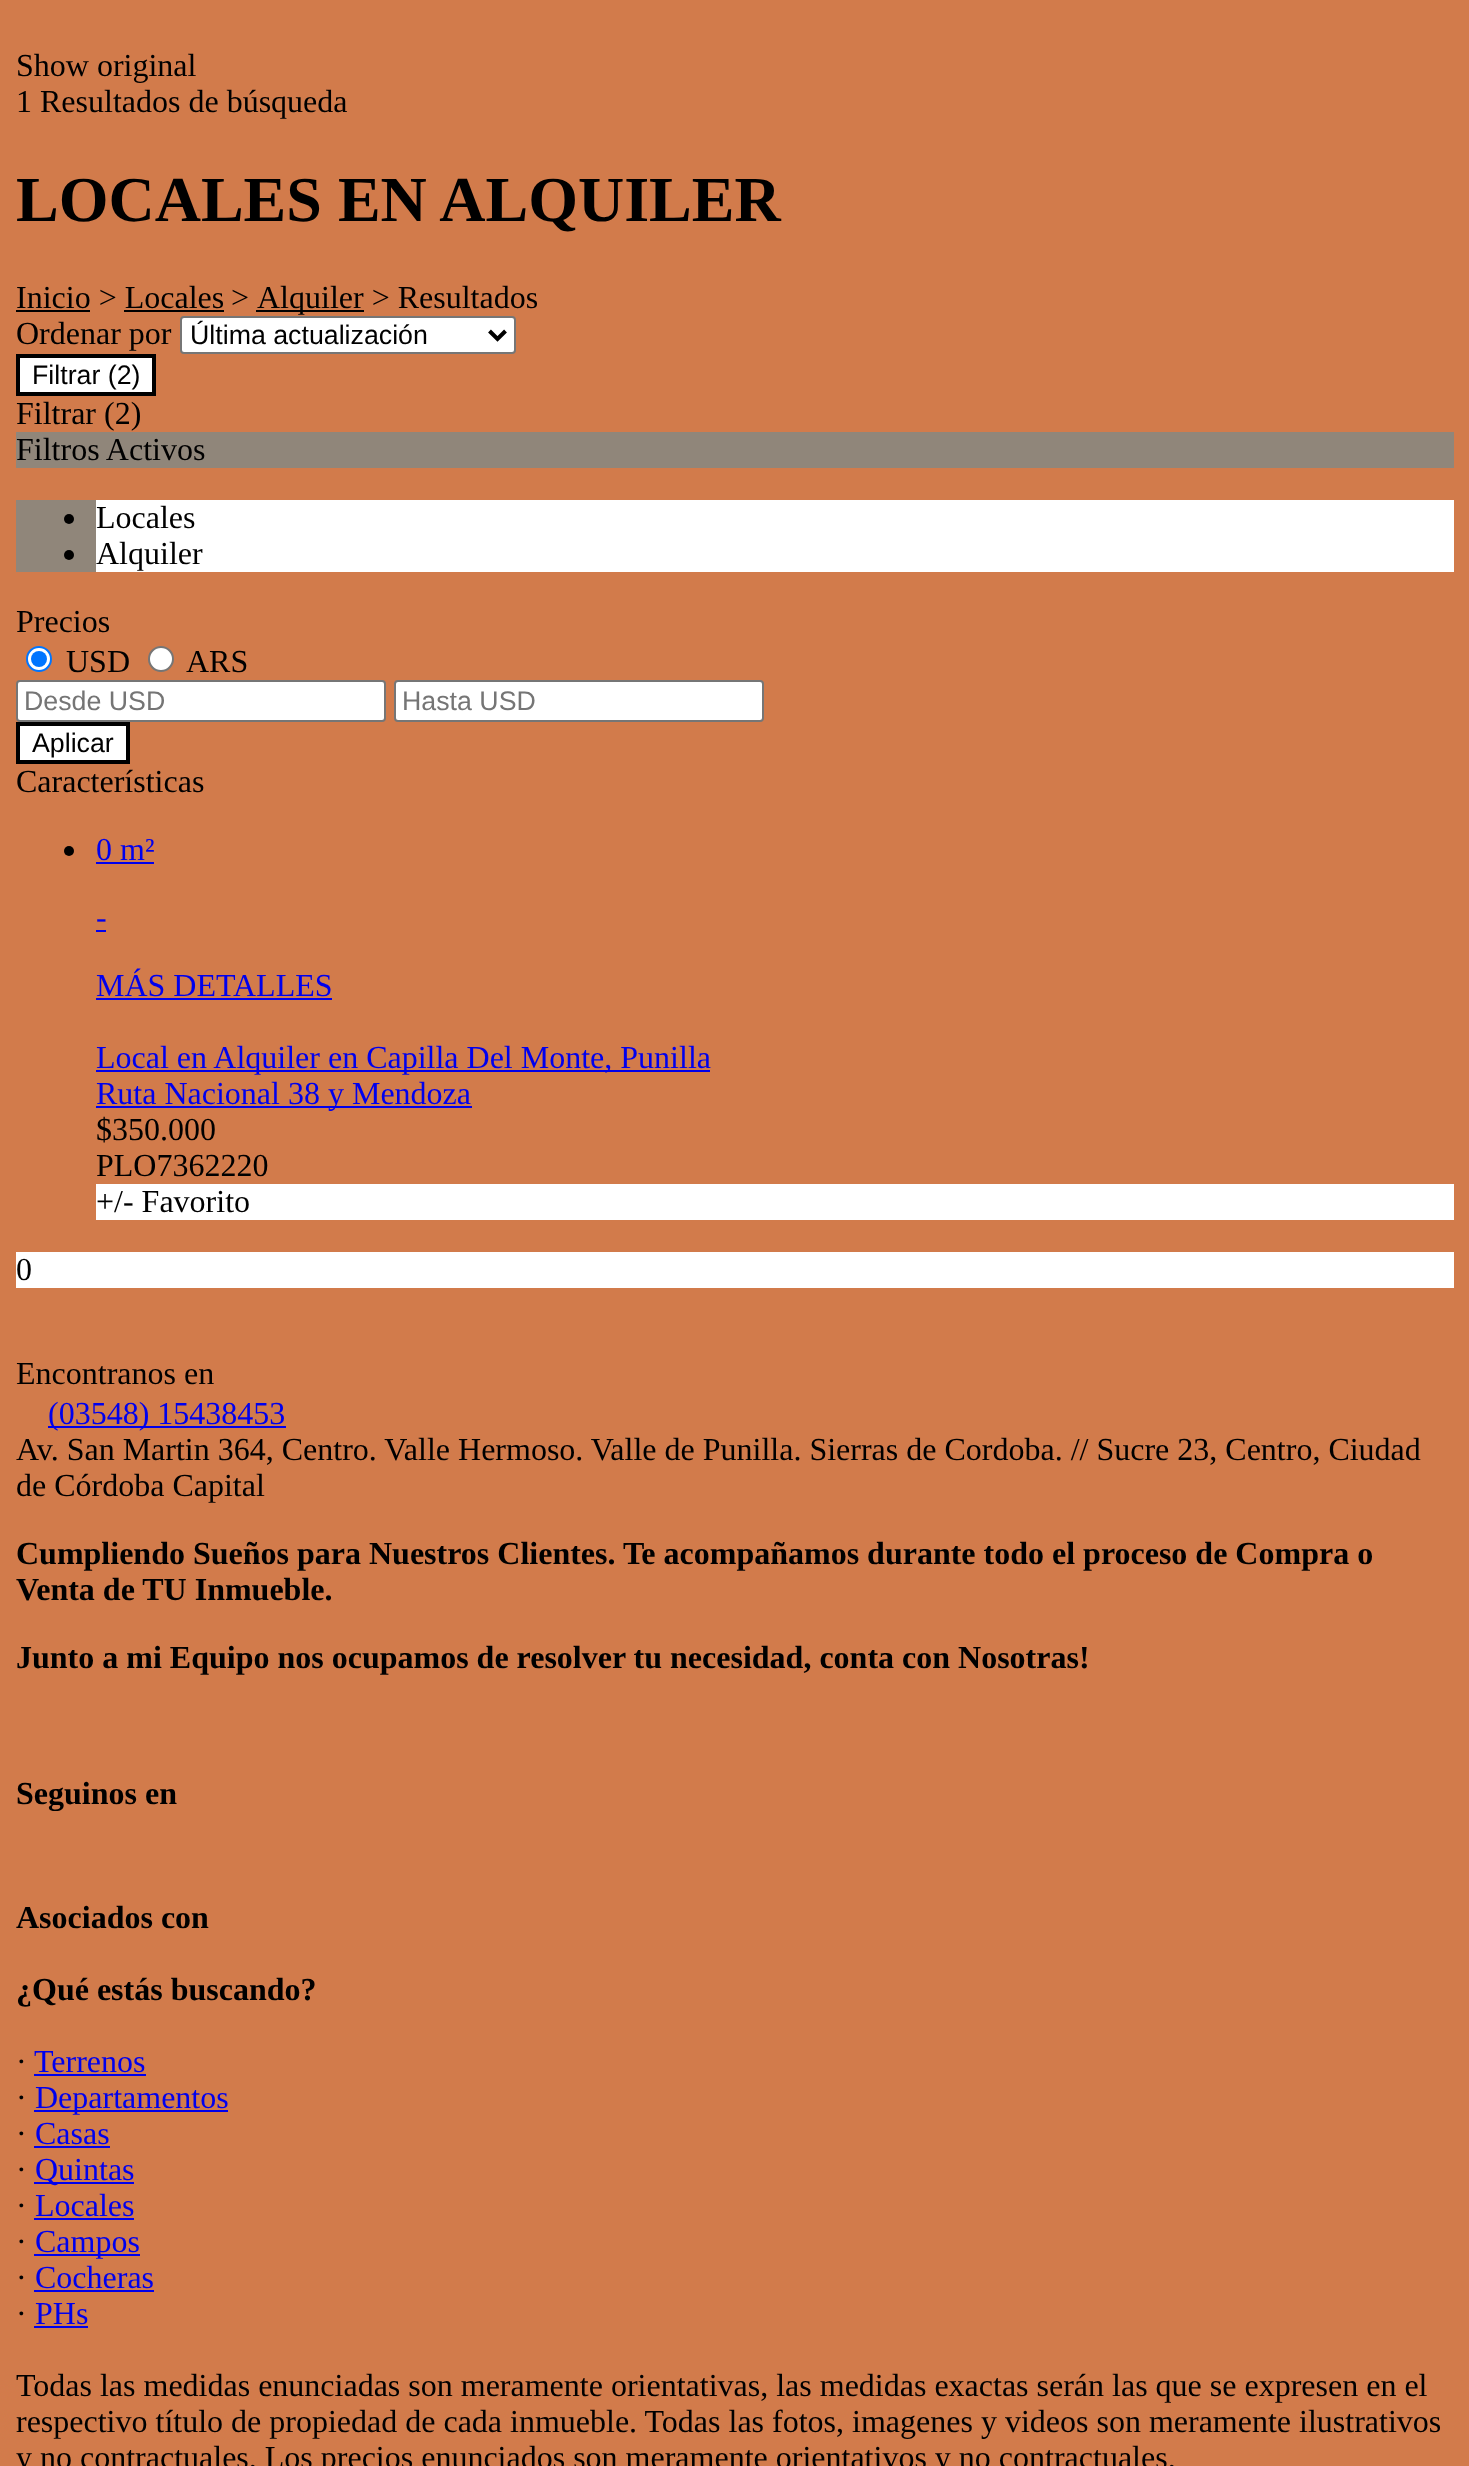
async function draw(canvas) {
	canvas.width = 1469;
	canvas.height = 2466;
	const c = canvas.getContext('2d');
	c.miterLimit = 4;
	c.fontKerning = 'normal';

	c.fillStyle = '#d27b4b';
	c.fillRect(0, 0, 1469, 2466);
	c.font = '32px Liberation Serif';
	c.fillStyle = '#000';
	c.fillText('Show original', 16, 76);
	c.fillText('1 Resultados de búsqueda', 16, 112);
	c.font = 'bold 64px Liberation Serif';
	c.fillText('LOCALES EN ALQUILER', 16, 221);
	c.font = '32px Liberation Serif';
	c.fillText('Inicio > Locales', 16, 308);
	c.fillRect(16, 310, 74, 2);
	c.fillText('>', 231, 308);
	c.fillRect(256, 310, 108, 2);
	c.fillText('Alquiler > Resultados', 257, 308);
	c.fillRect(124, 310, 100, 2);
	c.fillText('Ordenar por', 16, 344);
	c.fillStyle = '#fff';
	c.beginPath();
	c.roundRect(181, 317, 334, 36, 3);
	c.fill();
	c.strokeStyle = '#767676';
	c.lineWidth = 2;
	c.stroke();
	c.beginPath();
	c.moveTo(489.5, 331);
	c.lineTo(497.5, 339);
	c.lineTo(505.5, 331);
	c.strokeStyle = '#000';
	c.lineWidth = 4;
	c.stroke();
	c.font = '26.75px Liberation Sans';
	c.fillStyle = '#000';
	c.fillText('Última actualización', 190, 344);
	c.fillStyle = '#fff';
	c.beginPath();
	c.rect(18, 356, 136, 38);
	c.fill();
	c.stroke();
	c.fillStyle = '#000';
	c.fillText('Filtrar (2)', 32, 384);
	c.font = '32px Liberation Serif';
	c.fillText('Filtrar (2)', 16, 424);
	c.fillStyle = '#90867a';
	c.fillRect(16, 432, 1438, 36);
	c.fillStyle = '#000';
	c.fillText('Filtros Activos', 16, 460);
	c.fillStyle = '#90867a';
	c.fillRect(16, 500, 80, 72);
	c.fillStyle = '#fff';
	c.fillRect(96, 500, 1358, 72);
	c.fillStyle = '#000';
	c.beginPath();
	c.arc(69, 519, 5, 0, 2 * Math.PI);
	c.fill();
	c.fillText('Locales', 96, 528);
	c.beginPath();
	c.arc(69, 555, 5, 0, 2 * Math.PI);
	c.fill();
	c.fillText('Alquiler', 96, 564);
	c.fillText('Precios', 16, 632);
	c.fillStyle = '#fff';
	c.beginPath();
	c.arc(39, 659, 12, 0, 2 * Math.PI);
	c.fill();
	c.strokeStyle = '#0075ff';
	c.lineWidth = 2;
	c.stroke();
	c.fillStyle = '#0075ff';
	c.beginPath();
	c.arc(39, 659, 8, 0, 2 * Math.PI);
	c.fill();
	c.fillStyle = '#000';
	c.fillText('USD', 66, 672);
	c.fillStyle = '#fff';
	c.beginPath();
	c.arc(161, 659, 12, 0, 2 * Math.PI);
	c.fill();
	c.strokeStyle = '#767676';
	c.stroke();
	c.fillStyle = '#000';
	c.fillText('ARS', 186, 672);
	c.fillStyle = '#fff';
	c.beginPath();
	c.roundRect(17, 681, 368, 40, 3);
	c.fill();
	c.stroke();
	c.font = '26.75px Liberation Sans';
	c.fillStyle = '#757575';
	c.fillText('Desde USD', 24, 710);
	c.fillStyle = '#fff';
	c.beginPath();
	c.roundRect(395, 681, 368, 40, 3);
	c.fill();
	c.stroke();
	c.fillStyle = '#757575';
	c.fillText('Hasta USD', 402, 710);
	c.fillStyle = '#fff';
	c.beginPath();
	c.rect(18, 724, 110, 38);
	c.fill();
	c.strokeStyle = '#000';
	c.lineWidth = 4;
	c.stroke();
	c.fillStyle = '#000';
	c.fillText('Aplicar', 32, 752);
	c.font = '32px Liberation Serif';
	c.fillText('Características', 16, 792);
	c.beginPath();
	c.arc(69, 851, 5, 0, 2 * Math.PI);
	c.fill();
	c.fillStyle = '#00e';
	c.fillText('0 m²', 96, 860);
	c.fillRect(96, 862, 58, 2);
	c.fillText('-', 96, 928);
	c.fillRect(96, 930, 10, 2);
	c.fillText('MÁS DETALLES', 96, 996);
	c.fillRect(96, 998, 236, 2);
	c.fillRect(96, 1070, 614, 2);
	c.fillText('Local en Alquiler en Capilla Del Monte, Punilla', 96, 1068);
	c.fillRect(96, 1106, 376, 2);
	c.fillText('Ruta Nacional 38 y Mendoza', 96, 1104);
	c.fillStyle = '#000';
	c.fillText('$350.000', 96, 1140);
	c.fillText('PLO7362220', 96, 1176);
	c.fillStyle = '#fff';
	c.fillRect(96, 1184, 1358, 36);
	c.fillStyle = '#000';
	c.fillText('+/- Favorito', 96, 1212);
	c.fillStyle = '#fff';
	c.fillRect(16, 1252, 1438, 36);
	c.fillStyle = '#000';
	c.fillText('0', 16, 1280);
	c.fillText('Encontranos en', 16, 1384);
	c.fillStyle = '#00e';
	c.fillRect(48, 1426, 238, 2);
	c.fillText('(03548) 15438453', 48, 1424);
	c.fillStyle = '#000';
	c.fillText('Av. San Martin 364, Centro. Valle Hermoso. Valle de Punilla. Sierras de Cordoba. // Sucre 23, Centro, Ciudad', 16, 1460);
	c.fillText('de Córdoba Capital', 16, 1496);
	c.font = 'bold 32px Liberation Serif';
	for (const [text, x, y] of [
		['Cumpliendo Sueños para Nuestros Clientes. Te acompañamos durante todo el proceso de Compra o', 16, 1564],
		['Venta de TU Inmueble.', 16, 1600],
		['Junto a mi Equipo nos ocupamos de resolver tu necesidad, conta con Nosotras!', 16, 1668],
		['Seguinos en', 16, 1804],
		['Asociados con', 16, 1928],
		['¿Qué estás buscando?', 16, 2000],
	]) {
		c.fillText(text, x, y);
	}
	c.font = '32px Liberation Serif';
	c.fillText('·', 16, 2072);
	c.fillStyle = '#00e';
	c.fillText('Terrenos', 34, 2072);
	c.fillRect(34, 2074, 112, 2);
	c.fillStyle = '#000';
	c.fillText('·', 16, 2108);
	c.fillStyle = '#00e';
	c.fillRect(34, 2110, 194, 2);
	c.fillText('Departamentos', 35, 2108);
	c.fillStyle = '#000';
	c.fillText('·', 16, 2144);
	c.fillStyle = '#00e';
	c.fillText('Casas', 35, 2144);
	c.fillRect(34, 2146, 76, 2);
	c.fillStyle = '#000';
	c.fillText('·', 16, 2180);
	c.fillStyle = '#00e';
	c.fillRect(34, 2182, 100, 2);
	c.fillText('Quintas', 35, 2180);
	c.fillStyle = '#000';
	c.fillText('·', 16, 2216);
	c.fillStyle = '#00e';
	c.fillText('Locales', 35, 2216);
	c.fillRect(34, 2218, 100, 2);
	c.fillStyle = '#000';
	c.fillText('·', 16, 2252);
	c.fillStyle = '#00e';
	c.fillRect(34, 2254, 106, 2);
	c.fillText('Campos', 35, 2252);
	c.fillStyle = '#000';
	c.fillText('·', 16, 2288);
	c.fillStyle = '#00e';
	c.fillText('Cocheras', 35, 2288);
	c.fillRect(34, 2290, 120, 2);
	c.fillStyle = '#000';
	c.fillText('·', 16, 2324);
	c.fillStyle = '#00e';
	c.fillText('PHs', 35, 2324);
	c.fillRect(34, 2326, 54, 2);
	c.fillStyle = '#000';
	for (const [text, x, y] of [
		['Todas las medidas enunciadas son meramente orientativas, las medidas exactas serán las que se expresen en el', 16, 2396],
		['respectivo título de propiedad de cada inmueble. Todas las fotos, imagenes y videos son meramente ilustrativos', 16, 2432],
		['y no contractuales. Los precios enunciados son meramente orientativos y no contractuales.', 16, 2468],
	]) {
		c.fillText(text, x, y);
	}
}

draw(document.querySelector('canvas'));
